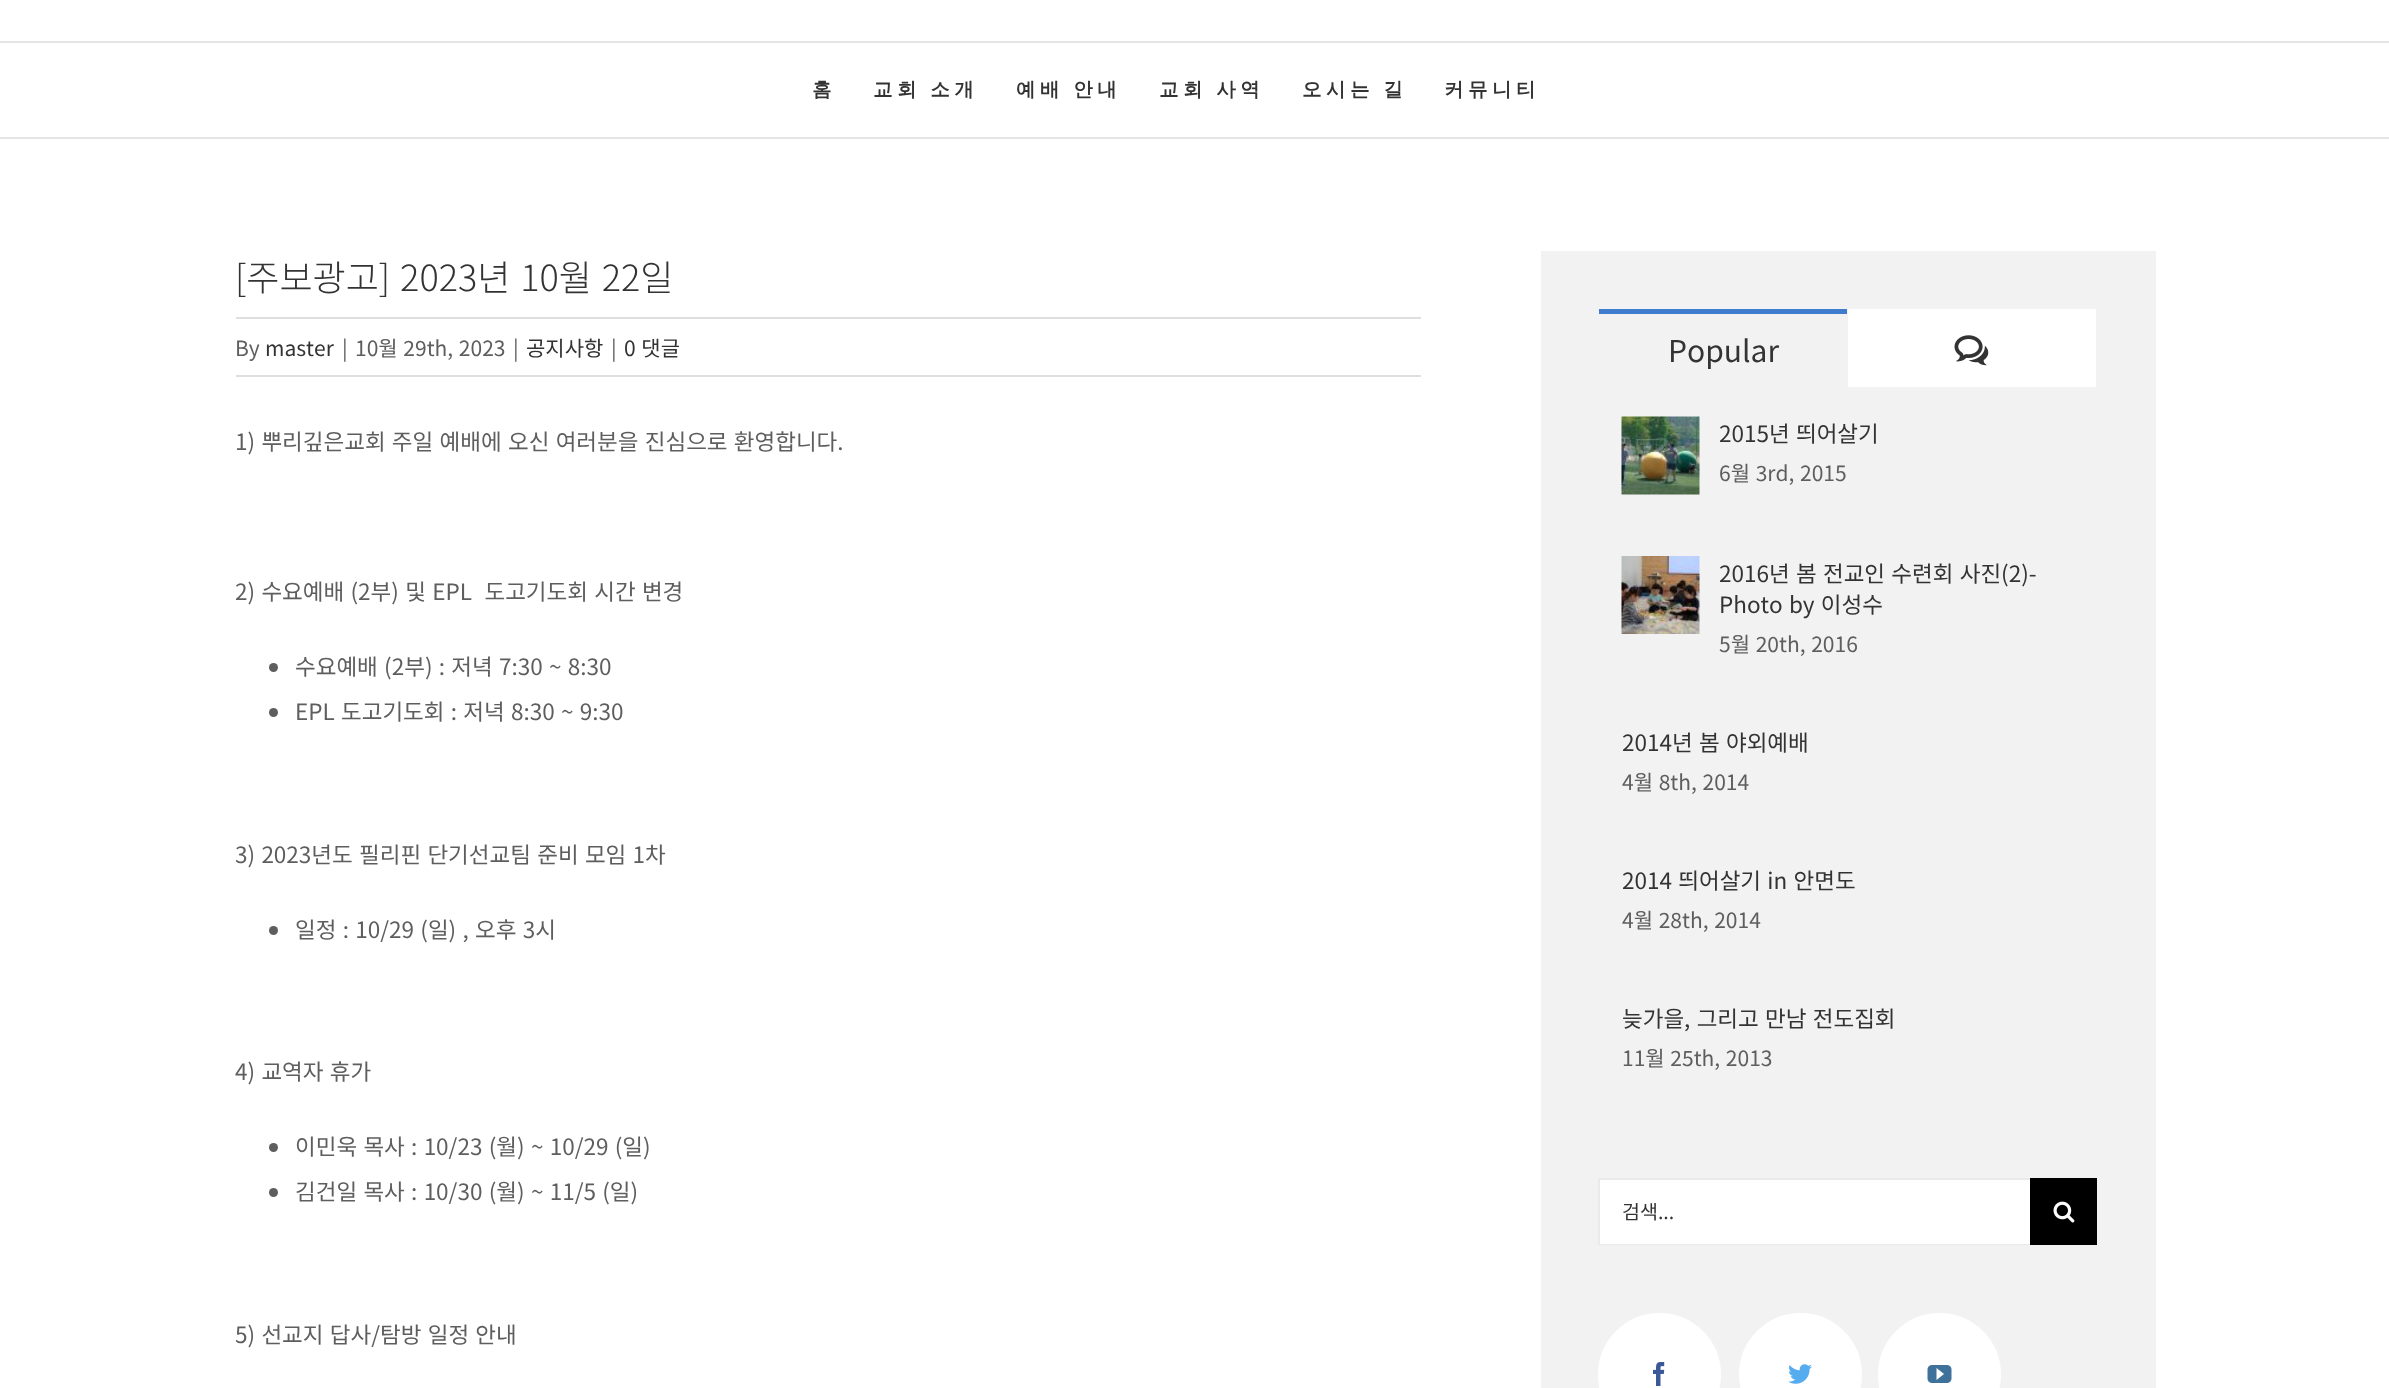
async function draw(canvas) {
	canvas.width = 2389;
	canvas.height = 1388;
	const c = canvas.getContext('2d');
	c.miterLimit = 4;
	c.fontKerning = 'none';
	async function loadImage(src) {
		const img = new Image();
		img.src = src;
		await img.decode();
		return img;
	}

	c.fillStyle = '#fff';
	c.fillRect(0, 0, 2389, 1388);
	c.fillStyle = '#e5e5e5';
	c.fillRect(0, 41, 2389, 2);
	c.fillRect(0, 137, 2389, 2);
	c.letterSpacing = '4.5px';
	c.font = 'bold 19.5px WenQuanYi Zen Hei';
	c.fillStyle = '#333';
	c.fillText('홈', 812, 96);
	c.wordSpacing = '-1px';
	for (const [text, x, y] of [
		['교회 소개', 873, 96],
		['예배 안내', 1016, 96],
		['교회 사역', 1159, 96],
		['오시는 길', 1302, 96],
	]) {
		c.fillText(text, x, y);
	}
	c.wordSpacing = '0px';
	c.fillText('커뮤니티', 1444, 96);
	c.letterSpacing = '0px';
	c.wordSpacing = '2px';
	c.font = '300 36px Noto Sans KR';
	c.fillText('[주보광고] 2023년 10월 22일', 235, 291);
	c.fillStyle = '#e0dede';
	c.fillRect(236, 317, 1185, 2);
	c.fillRect(236, 375, 1185, 2);
	c.wordSpacing = '0px';
	c.font = '21px Noto Sans KR';
	c.fillStyle = '#5e5e5e';
	c.fillText('By', 235, 356);
	c.fillStyle = '#333';
	c.fillText('master', 265, 356);
	c.fillStyle = '#5e5e5e';
	c.fillText('|', 342, 356);
	c.wordSpacing = '1px';
	c.fillText('10월 29th, 2023', 355, 356);
	c.wordSpacing = '0px';
	c.fillText('|', 513, 356);
	c.fillStyle = '#333';
	c.fillText('공지사항', 526, 356);
	c.fillStyle = '#5e5e5e';
	c.fillText('|', 611, 356);
	c.wordSpacing = '1px';
	c.fillStyle = '#333';
	c.fillText('0 댓글', 624, 356);
	c.wordSpacing = '1.25px';
	c.font = '22.5px Noto Sans KR';
	c.fillStyle = '#5e5e5e';
	c.fillText('1) 뿌리깊은교회 주일 예배에 오신 여러분을 진심으로 환영합니다.', 235, 450);
	c.fillText('2) 수요예배 (2부) 및 EPL  도고기도회 시간 변경', 235, 600);
	c.beginPath();
	c.arc(273.5, 667.5, 4.5, 0, 2 * Math.PI);
	c.fill();
	c.fillText('수요예배 (2부) : 저녁 7:30 ~ 8:30', 295, 675);
	c.beginPath();
	c.arc(273.5, 712.5, 4.5, 0, 2 * Math.PI);
	c.fill();
	c.fillText('EPL 도고기도회 : 저녁 8:30 ~ 9:30', 295, 720);
	c.fillText('3) 2023년도 필리핀 단기선교팀 준비 모임 1차', 235, 863);
	c.beginPath();
	c.arc(273.5, 930.5, 4.5, 0, 2 * Math.PI);
	c.fill();
	c.fillText('일정 : 10/29 (일) , 오후 3시', 295, 938);
	c.fillText('4) 교역자 휴가', 235, 1080);
	c.beginPath();
	c.arc(273.5, 1147.5, 4.5, 0, 2 * Math.PI);
	c.fill();
	c.fillText('이민욱 목사 : 10/23 (월) ~ 10/29 (일)', 295, 1155);
	c.beginPath();
	c.arc(273.5, 1192.5, 4.5, 0, 2 * Math.PI);
	c.fill();
	c.fillText('김건일 목사 : 10/30 (월) ~ 11/5 (일)', 295, 1200);
	c.fillText('5) 선교지 답사/탐방 일정 안내', 235, 1343);
	c.fillStyle = '#f2f2f2';
	c.fillRect(1541, 251, 615, 1137);
	c.fillStyle = '#3f7ccd';
	c.fillRect(1599, 309, 248, 5);
	c.wordSpacing = '0px';
	c.font = '30px Noto Sans KR';
	c.fillStyle = '#333';
	c.fillText('Popular', 1668, 362);
	c.fillStyle = '#fff';
	c.fillRect(1848, 309, 248, 78);
	c.drawImage(await loadImage('img1.png'), 1954, 335, 35, 31);
	c.drawImage(await loadImage('img2.png'), 1621, 416, 79, 79);
	c.wordSpacing = '1.25px';
	c.font = '22.5px Noto Sans KR';
	c.fillStyle = '#333';
	c.fillText('2015년 띄어살기', 1719, 442);
	c.wordSpacing = '1px';
	c.font = '21px Noto Sans KR';
	c.fillStyle = '#5e5e5e';
	c.fillText('6월 3rd, 2015', 1719, 481);
	c.drawImage(await loadImage('img3.png'), 1621, 556, 79, 78);
	c.wordSpacing = '1.25px';
	c.font = '22.5px Noto Sans KR';
	c.fillStyle = '#333';
	c.fillText('2016년 봄 전교인 수련회 사진(2)-', 1719, 582);
	c.fillText('Photo by 이성수', 1719, 613);
	c.wordSpacing = '1px';
	c.font = '21px Noto Sans KR';
	c.fillStyle = '#5e5e5e';
	c.fillText('5월 20th, 2016', 1719, 652);
	c.wordSpacing = '1.25px';
	c.font = '22.5px Noto Sans KR';
	c.fillStyle = '#333';
	c.fillText('2014년 봄 야외예배', 1622, 751);
	c.wordSpacing = '1px';
	c.font = '21px Noto Sans KR';
	c.fillStyle = '#5e5e5e';
	c.fillText('4월 8th, 2014', 1622, 790);
	c.wordSpacing = '1.25px';
	c.font = '22.5px Noto Sans KR';
	c.fillStyle = '#333';
	c.fillText('2014 띄어살기 in 안면도', 1622, 889);
	c.wordSpacing = '1px';
	c.font = '21px Noto Sans KR';
	c.fillStyle = '#5e5e5e';
	c.fillText('4월 28th, 2014', 1622, 928);
	c.wordSpacing = '1.25px';
	c.font = '22.5px Noto Sans KR';
	c.fillStyle = '#333';
	c.fillText('늦가을, 그리고 만남 전도집회', 1622, 1027);
	c.wordSpacing = '1px';
	c.font = '21px Noto Sans KR';
	c.fillStyle = '#5e5e5e';
	c.fillText('11월 25th, 2013', 1622, 1066);
	for (const [x, y, w, h, color] of [
		[1600, 1180, 430, 64, '#fff'],
		[1598, 1178, 432, 2, '#eaeaea'],
		[1598, 1244, 432, 1, '#eaeaea'],
		[1598, 1178, 2, 67, '#eaeaea'],
	]) {
		c.fillStyle = color;
		c.fillRect(x, y, w, h);
	}
	c.wordSpacing = '0px';
	c.font = '19.5px Noto Sans KR';
	c.fillStyle = '#333';
	c.fillText('검색...', 1622, 1219);
	c.fillStyle = '#000';
	c.fillRect(2030, 1178, 67, 67);
	c.drawImage(await loadImage('img4.png'), 2053, 1201, 22, 22);
	c.fillStyle = '#fff';
	c.beginPath();
	c.arc(1659.5, 1374.5, 60.5, 0, 2 * Math.PI);
	c.fill();
	c.strokeStyle = '#fff';
	c.lineWidth = 2;
	c.stroke();
	c.drawImage(await loadImage('img5.png'), 1653, 1362, 12, 24);
	c.beginPath();
	c.arc(1800.5, 1374.5, 60.5, 0, 2 * Math.PI);
	c.fill();
	c.stroke();
	c.drawImage(await loadImage('img6.png'), 1788, 1364, 24, 20);
	c.beginPath();
	c.arc(1939.5, 1374.5, 60.5, 0, 2 * Math.PI);
	c.fill();
	c.stroke();
	c.drawImage(await loadImage('img7.png'), 1927, 1365, 25, 18);
}

draw(document.querySelector('canvas'));
